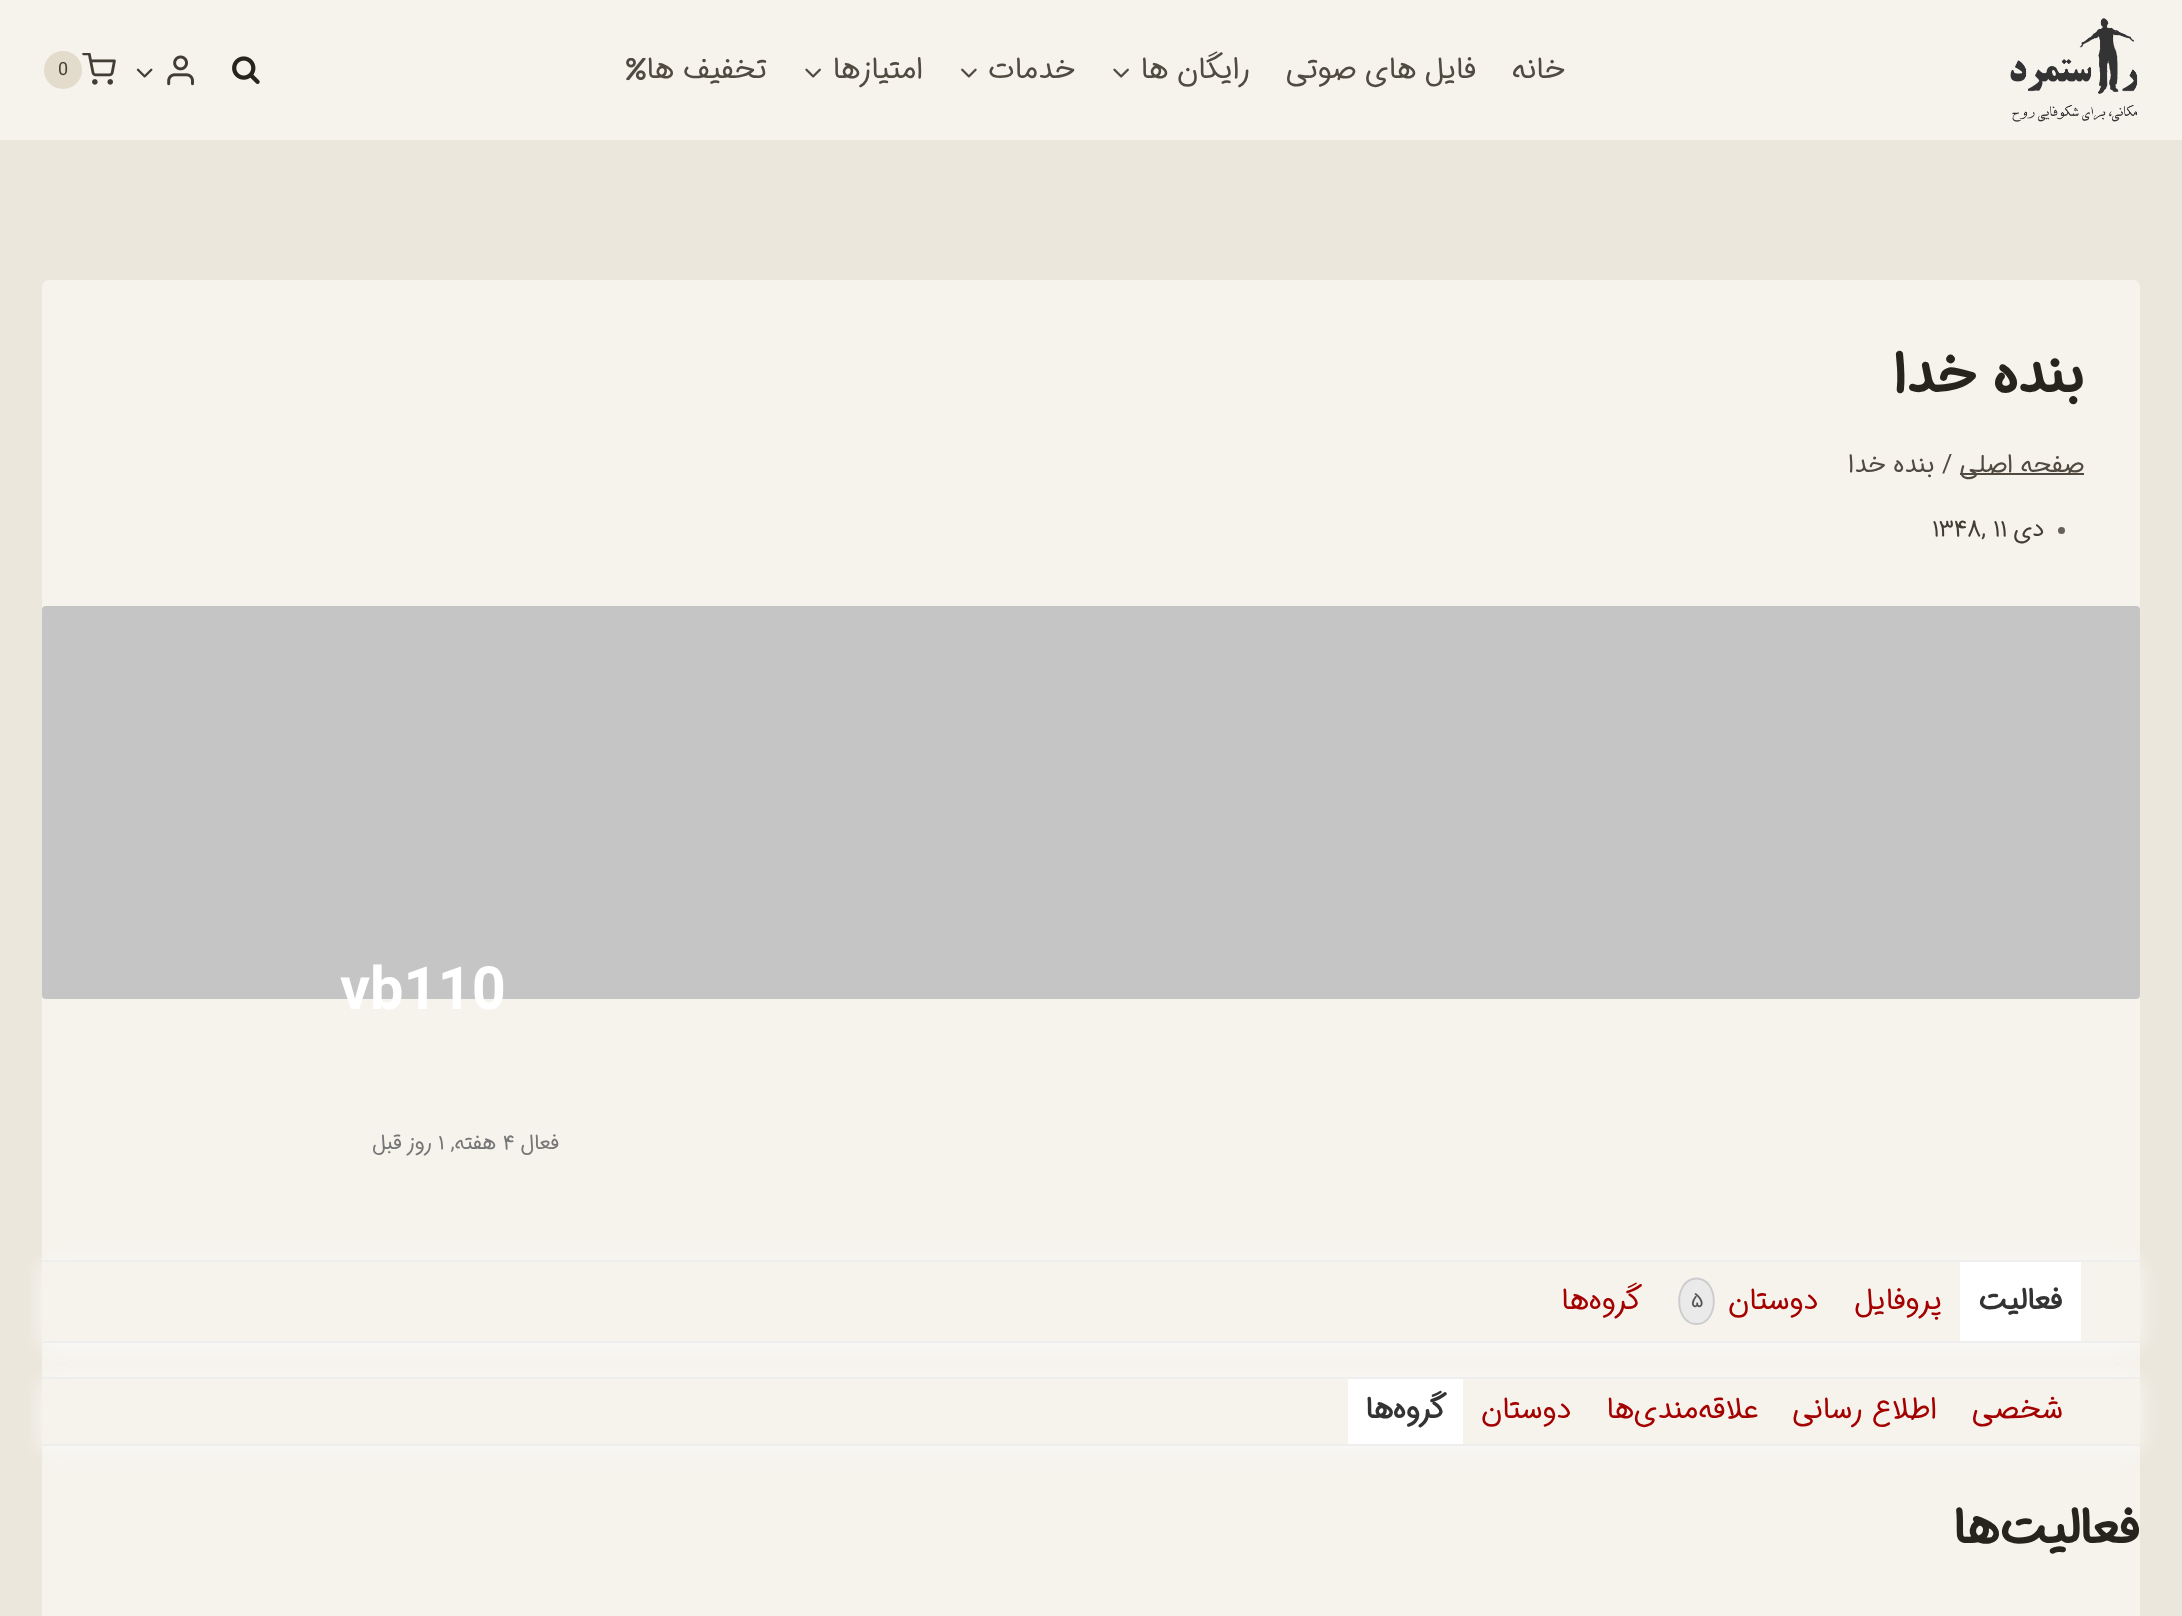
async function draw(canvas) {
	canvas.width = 2182;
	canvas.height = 1616;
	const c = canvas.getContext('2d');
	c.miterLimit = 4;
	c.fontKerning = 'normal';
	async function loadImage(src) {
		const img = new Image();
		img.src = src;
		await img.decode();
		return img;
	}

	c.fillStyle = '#ece7dc';
	c.fillRect(0, 0, 2182, 1616);
	c.fillStyle = '#f6f3ed';
	c.fillRect(0, 0, 2182, 140);
	c.drawImage(await loadImage('img1.png'), 2010, 18, 128, 104);
	c.direction = 'rtl';
	c.font = '29.75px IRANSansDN';
	c.fillStyle = '#504a40';
	for (const [text, x, y] of [
		['خانه', 1565, 78],
		['فایل های صوتی', 1476, 78],
		['رایگان ها', 1250, 78],
	]) {
		c.fillText(text, x, y);
	}
	c.drawImage(await loadImage('img2.png'), 1113, 68, 16, 10);
	c.fillText('خدمات', 1075, 78);
	c.drawImage(await loadImage('img3.png'), 961, 68, 16, 10);
	c.fillText('امتیازها', 923, 78);
	c.drawImage(await loadImage('img2.png'), 805, 68, 16, 10);
	c.fillText('تخفیف ها', 767, 78);
	c.drawImage(await loadImage('img4.png'), 626, 58, 20, 23);
	c.drawImage(await loadImage('img5.png'), 232, 56, 28, 28);
	c.drawImage(await loadImage('img6.png'), 167, 55, 27, 31);
	c.drawImage(await loadImage('img7.png'), 136, 68, 17, 10);
	c.drawImage(await loadImage('img8.png'), 82, 53, 34, 32);
	c.fillStyle = '#e3dbcb';
	c.beginPath();
	c.arc(63, 70, 19, 0, 2 * Math.PI);
	c.fill();
	c.direction = 'ltr';
	c.font = '18px IRANSansDN';
	c.fillStyle = '#423d33';
	c.fillText('0', 58, 75);
	c.fillStyle = '#f6f3ed';
	c.beginPath();
	c.roundRect(42, 280, 2098, 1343, 7);
	c.fill();
	c.direction = 'rtl';
	c.font = 'bold 56px IRANSansDN';
	c.fillStyle = '#27241d';
	c.fillText('بنده خدا', 2084, 392);
	c.fillStyle = '#504a40';
	c.fillRect(1960, 473, 124, 2);
	c.font = '25.25px IRANSansDN';
	c.fillText('صفحه اصلی', 2084, 472);
	c.direction = 'ltr';
	c.fillText('/', 1942, 472);
	c.direction = 'rtl';
	c.fillText('بنده خدا', 1934, 472);
	c.fillStyle = '#666158';
	c.beginPath();
	c.arc(2061.5, 530.5, 3.5, 0, 2 * Math.PI);
	c.fill();
	c.font = '24px IRANSansDN';
	c.fillStyle = '#423d33';
	c.fillText('دی', 2044, 536);
	c.direction = 'ltr';
	c.fillText('۱۳۴۸, ۱۱', 1932, 536);
	c.fillStyle = '#c5c5c5';
	c.beginPath();
	c.roundRect(42, 606, 2098, 393, 4);
	c.fill();
	c.font = 'bold 59.5px IRANSansDN';
	c.fillStyle = '#fff';
	c.fillText('vb110', 340, 1009);
	c.direction = 'rtl';
	c.font = '21px IRANSansDN';
	c.fillStyle = '#767676';
	c.fillText('فعال', 559, 1149);
	c.direction = 'ltr';
	c.fillText('۴', 503, 1149);
	c.direction = 'rtl';
	c.fillText('هفته,', 496, 1149);
	c.direction = 'ltr';
	c.fillText('۱', 438, 1149);
	c.direction = 'rtl';
	c.fillText('روز قبل', 432, 1149);
	c.save();
	c.beginPath();
	c.moveTo(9, 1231);
	c.lineTo(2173, 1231);
	c.lineTo(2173, 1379);
	c.lineTo(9, 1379);
	c.closePath();
	c.moveTo(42, 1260);
	c.lineTo(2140, 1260);
	c.lineTo(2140, 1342);
	c.lineTo(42, 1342);
	c.closePath();
	c.clip('evenodd');
	c.fillStyle = '#fafafa';
	c.filter = 'blur(10.5px)';
	c.beginPath();
	c.rect(42, 1264, 2098, 82);
	c.fill();
	c.filter = 'none';
	c.restore();
	for (const [x, y, w, h, color] of [
		[42, 1260, 2098, 2, '#eee'],
		[42, 1341, 2098, 2, '#eee'],
		[1960, 1262, 121, 79, '#fff'],
	]) {
		c.fillStyle = color;
		c.fillRect(x, y, w, h);
	}
	c.font = 'bold 29.75px "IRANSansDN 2"';
	c.fillStyle = '#333';
	c.fillText('فعالیت', 2062, 1309);
	c.font = '29.75px IRANSansDN';
	c.fillStyle = '#a40000';
	c.fillText('پروفایل', 1942, 1309);
	c.fillText('دوستان', 1818, 1309);
	c.fillStyle = '#eaeaea';
	c.beginPath();
	c.ellipse(1696.5, 1301, 18.5, 23.5, 0, 0, 2 * Math.PI);
	c.fill();
	c.beginPath();
	c.moveTo(1696.5, 1278.5);
	c.bezierCurveTo(1719.5, 1278.5, 1719.5, 1324, 1696.5, 1324);
	c.bezierCurveTo(1673.5, 1324, 1673.5, 1278.5, 1696.5, 1278.5);
	c.closePath();
	c.strokeStyle = '#ccc';
	c.lineWidth = 1.8;
	c.stroke();
	c.direction = 'ltr';
	c.font = '21px IRANSansDN';
	c.fillStyle = '#555';
	c.fillText('۵', 1691, 1307);
	c.direction = 'rtl';
	c.font = '29.75px IRANSansDN';
	c.fillStyle = '#a40000';
	c.fillText('گروه‌ها', 1642, 1309);
	c.save();
	c.beginPath();
	c.moveTo(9, 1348);
	c.lineTo(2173, 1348);
	c.lineTo(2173, 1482);
	c.lineTo(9, 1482);
	c.closePath();
	c.moveTo(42, 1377);
	c.lineTo(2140, 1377);
	c.lineTo(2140, 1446);
	c.lineTo(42, 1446);
	c.closePath();
	c.clip('evenodd');
	c.fillStyle = '#fafafa';
	c.filter = 'blur(10.5px)';
	c.beginPath();
	c.rect(42, 1381, 2098, 68);
	c.fill();
	c.filter = 'none';
	c.restore();
	c.fillStyle = '#eee';
	c.fillRect(42, 1377, 2098, 2);
	c.fillRect(42, 1444, 2098, 2);
	c.fillStyle = '#a40000';
	for (const [text, x, y] of [
		['شخصی', 2063, 1418],
		['اطلاع رسانی', 1937, 1418],
		['علاقه‌مندی‌ها', 1758, 1418],
		['دوستان', 1571, 1418],
	]) {
		c.fillText(text, x, y);
	}
	c.fillStyle = '#fff';
	c.fillRect(1348, 1379, 115, 65);
	c.font = 'bold 29.75px "IRANSansDN 2"';
	c.fillStyle = '#333';
	c.fillText('گروه‌ها', 1446, 1418);
	c.font = 'bold 49px IRANSansDN';
	c.fillStyle = '#27241d';
	c.fillText('فعالیت‌ها', 2140, 1543);
}

draw(document.querySelector('canvas'));
